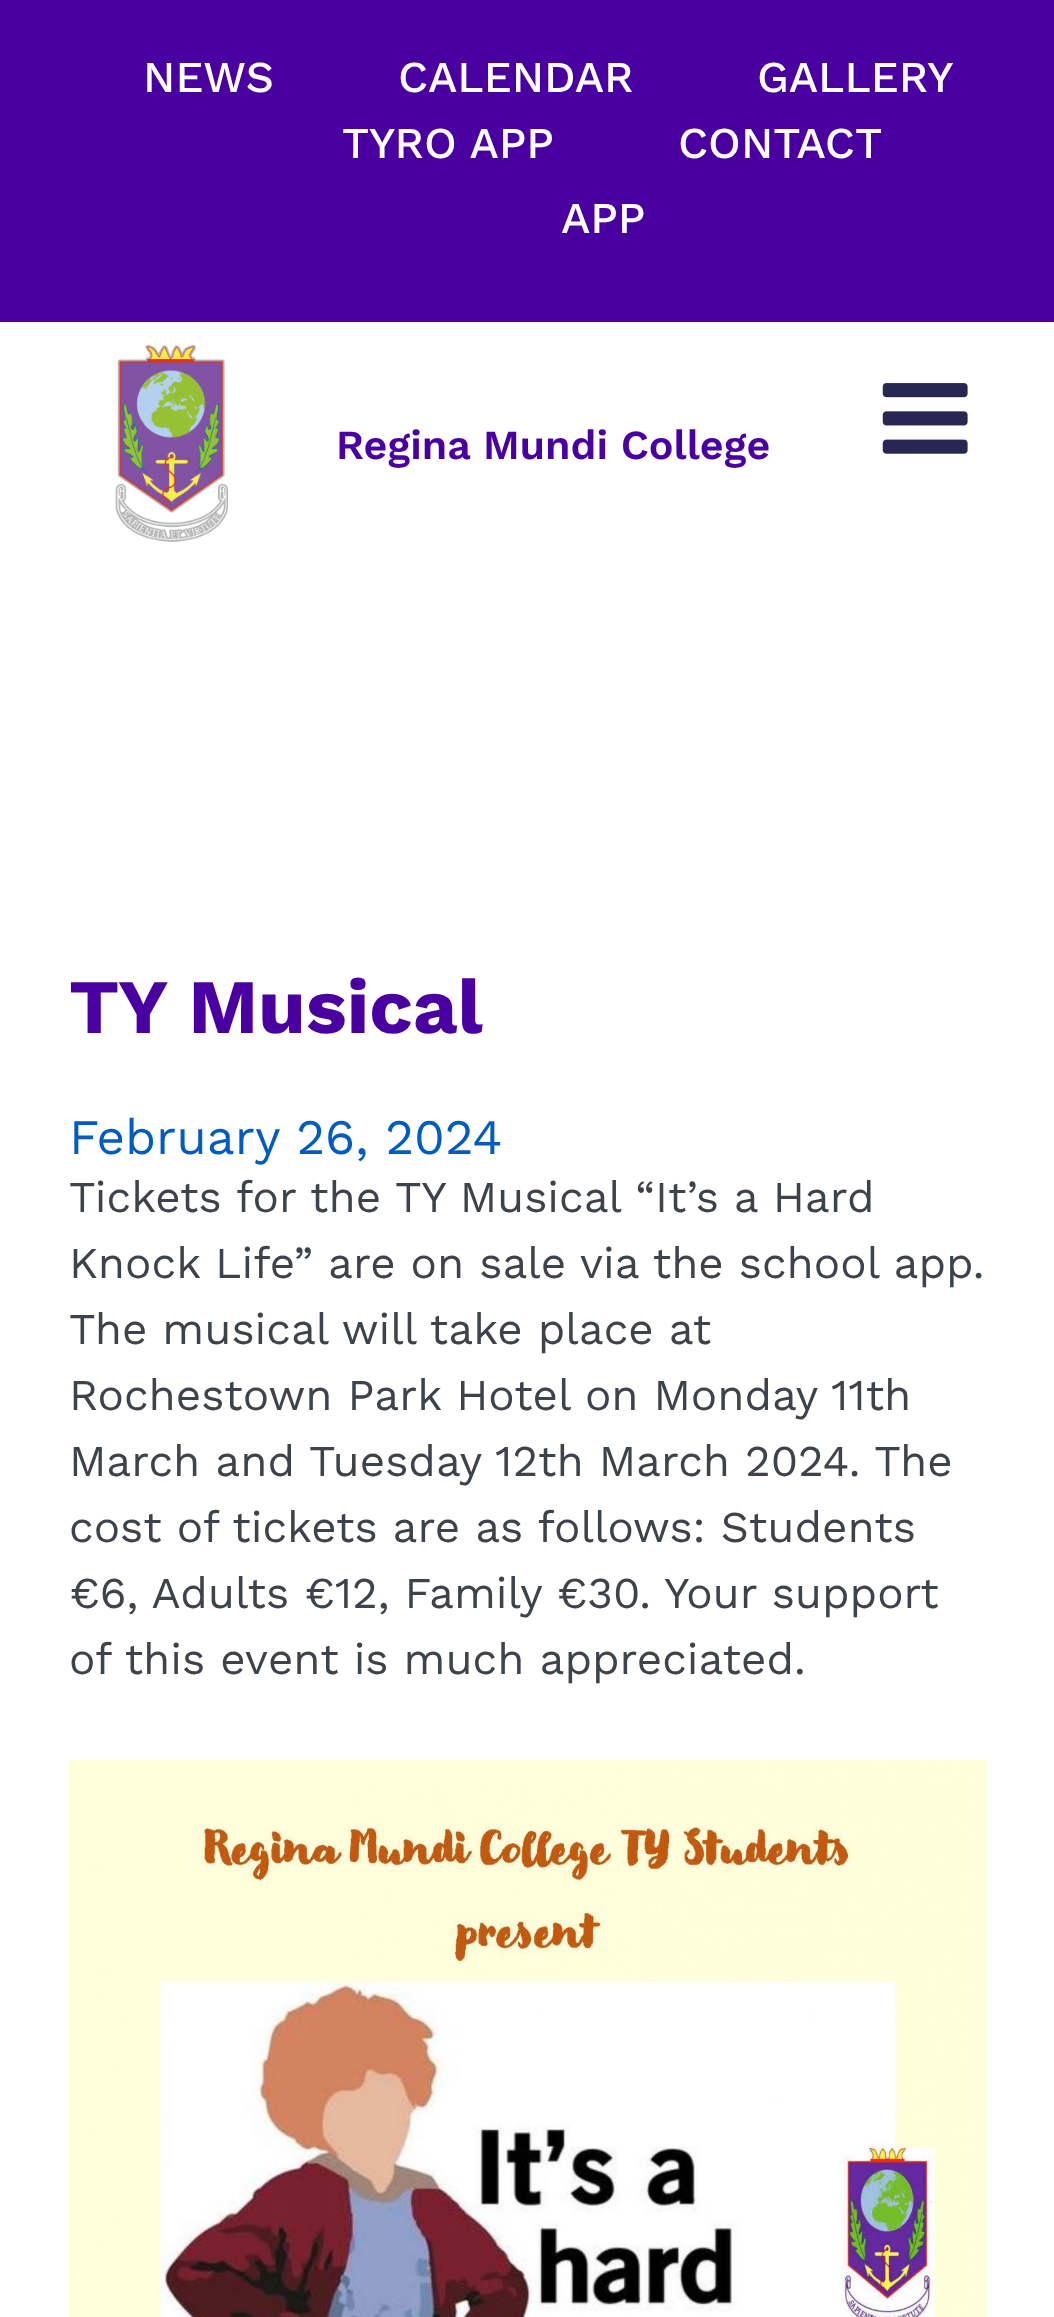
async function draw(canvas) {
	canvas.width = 1054;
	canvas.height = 2317;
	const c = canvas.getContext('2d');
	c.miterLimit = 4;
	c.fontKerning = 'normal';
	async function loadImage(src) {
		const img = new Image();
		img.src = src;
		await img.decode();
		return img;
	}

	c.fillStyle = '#fff';
	c.fillRect(0, 0, 1054, 2317);
	c.fillStyle = '#4a00a0';
	c.fillRect(0, 0, 1054, 322);
	c.font = '500 44px Work Sans';
	c.fillStyle = '#fff';
	for (const [text, x, y] of [
		['NEWS', 143, 92],
		['CALENDAR', 398, 92],
		['GALLERY', 757, 92],
		['TYRO APP', 342, 158],
		['CONTACT', 678, 158],
		['APP', 561, 233],
	]) {
		c.fillText(text, x, y);
	}
	c.drawImage(await loadImage('img1.png'), 115, 345, 113, 197);
	c.font = '600 41.25px Work Sans';
	c.fillStyle = '#4a00a0';
	c.fillText('Regina Mundi College', 336, 459);
	c.drawImage(await loadImage('img2.png'), 882, 383, 86, 71);
	c.font = 'bold 77px Work Sans';
	c.fillText('TY Musical', 69, 1033);
	c.font = '49.5px Work Sans';
	c.fillStyle = '#025bbe';
	c.fillText('February 26, 2024', 69, 1154);
	c.font = '44px Work Sans';
	c.fillStyle = '#3d434b';
	for (const [text, x, y] of [
		['Tickets for the TY Musical “It’s a Hard', 69, 1212],
		['Knock Life” are on sale via the school app.', 69, 1278],
		['The musical will take place at', 69, 1344],
		['Rochestown Park Hotel on Monday 11th', 69, 1410],
		['March and Tuesday 12th March 2024. The', 69, 1476],
		['cost of tickets are as follows: Students', 69, 1542],
		['€6, Adults €12, Family €30. Your support', 69, 1608],
		['of this event is much appreciated.', 69, 1674],
	]) {
		c.fillText(text, x, y);
	}
	c.drawImage(await loadImage('img3.png'), 68, 1760, 920, 557);
}

draw(document.querySelector('canvas'));
